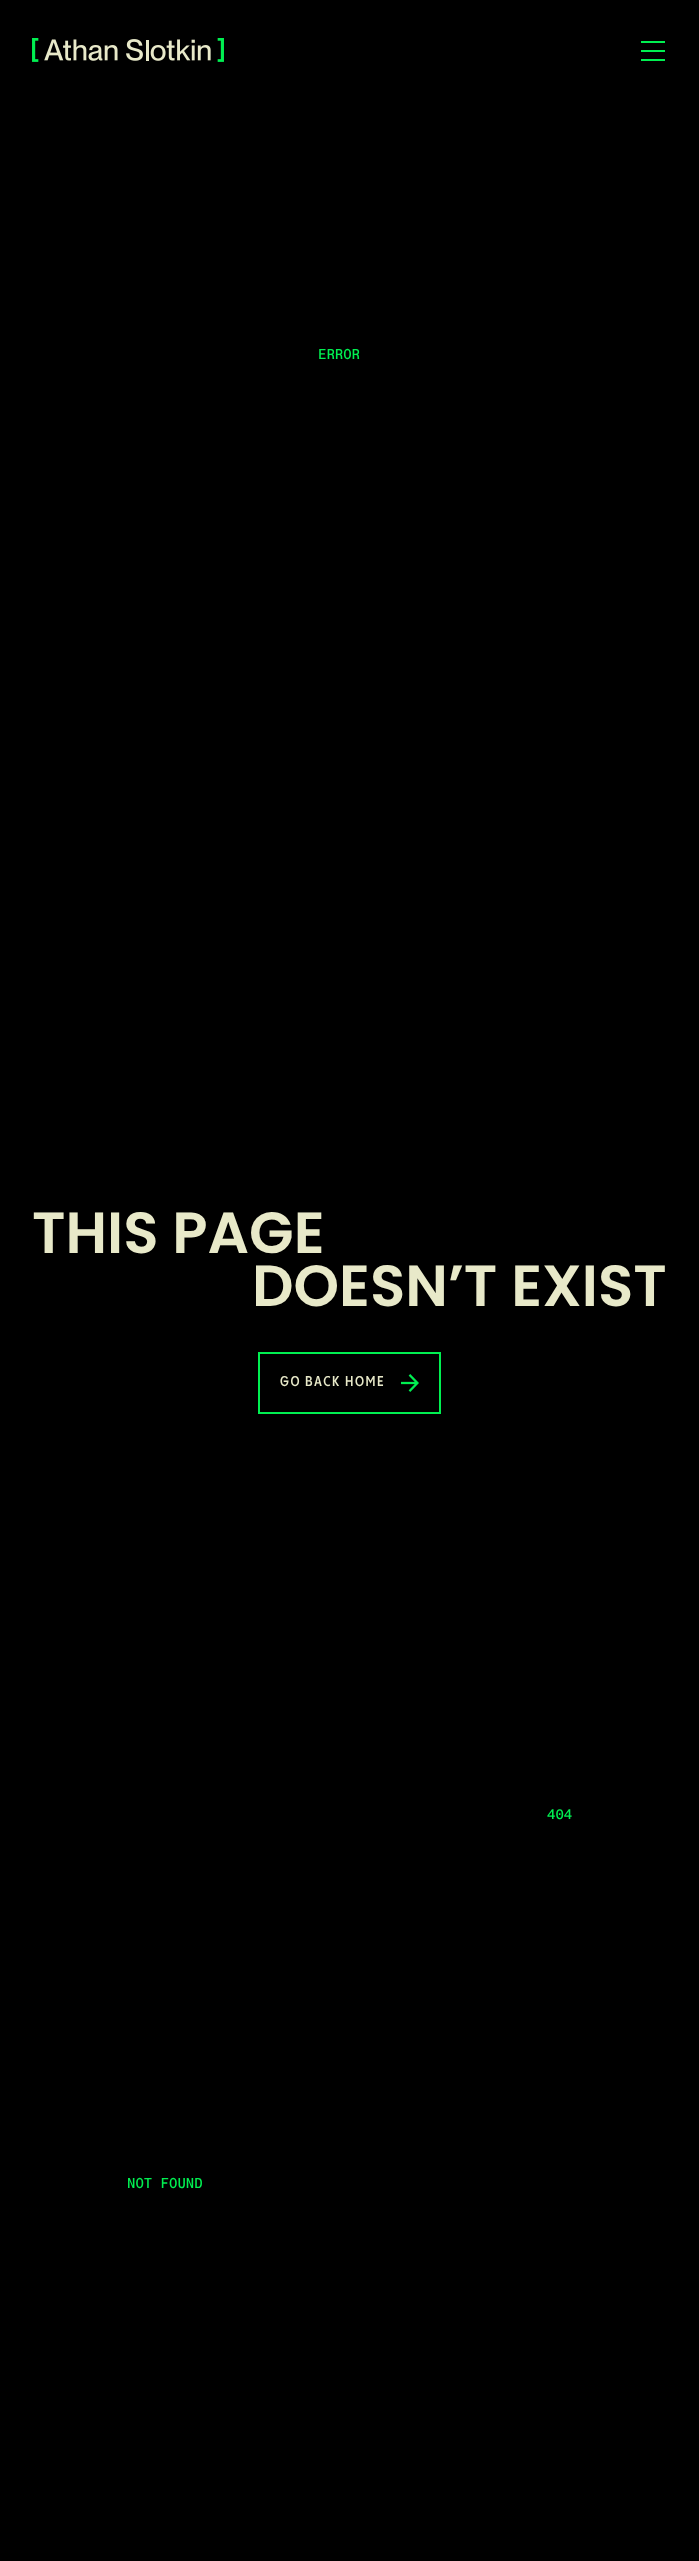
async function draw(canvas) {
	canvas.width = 699;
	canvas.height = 2561;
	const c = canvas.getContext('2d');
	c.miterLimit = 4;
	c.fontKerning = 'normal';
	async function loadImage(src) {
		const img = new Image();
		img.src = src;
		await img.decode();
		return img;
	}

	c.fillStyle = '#000';
	c.fillRect(0, 0, 699, 2561);
	c.drawImage(await loadImage('img1.png'), 32, 38, 192, 24);
	for (const [x, y, w, h, color] of [
		[641, 41, 24, 2, '#00ef51'],
		[641, 50, 24, 2, '#00ef51'],
		[641, 59, 24, 2, '#00ef51'],
	]) {
		c.fillStyle = color;
		c.fillRect(x, y, w, h);
	}
	c.font = '500 14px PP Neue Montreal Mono';
	c.fillText('ERROR', 318, 359);
	c.font = '600 58px Poppins';
	c.fillStyle = '#e8e9c9';
	c.fillText('THIS PAGE', 32, 1253);
	c.fillText('DOESN’T EXIST', 252, 1306);
	c.strokeStyle = '#00ef51';
	c.lineWidth = 2;
	c.strokeRect(259, 1353, 181, 60);
	c.letterSpacing = '1.5px';
	c.font = '600 14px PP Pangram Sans';
	c.fillText('GO BACK HOME', 280, 1386);
	c.drawImage(await loadImage('img2.png'), 401, 1374, 18, 18);
	c.letterSpacing = '0px';
	c.font = '500 14px PP Neue Montreal Mono';
	c.fillStyle = '#00ef51';
	c.fillText('404', 547, 1819);
	c.fillText('NOT FOUND', 127, 2188);
}

draw(document.querySelector('canvas'));
